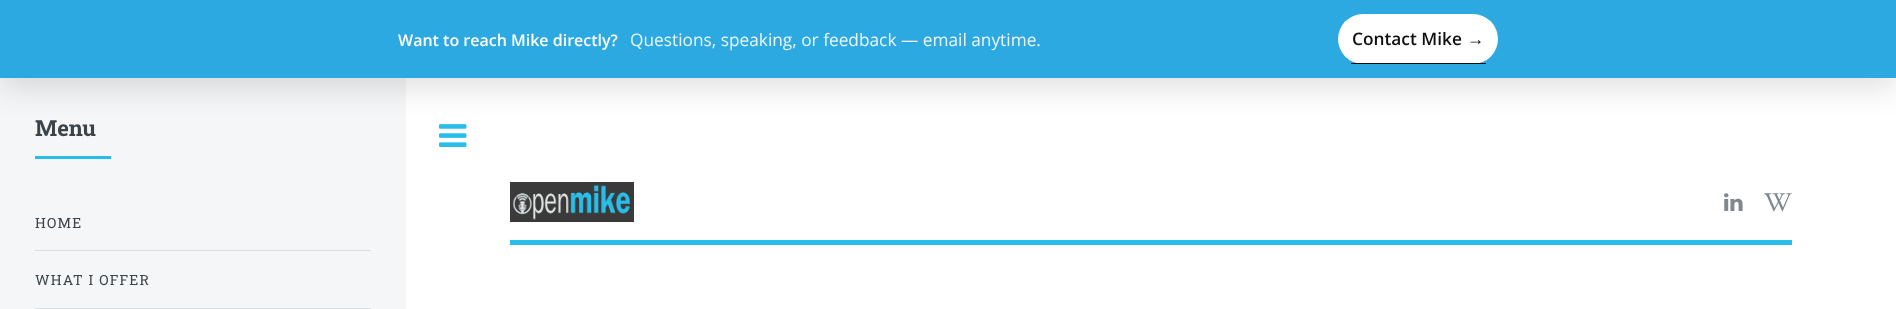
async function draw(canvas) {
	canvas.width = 1896;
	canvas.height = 309;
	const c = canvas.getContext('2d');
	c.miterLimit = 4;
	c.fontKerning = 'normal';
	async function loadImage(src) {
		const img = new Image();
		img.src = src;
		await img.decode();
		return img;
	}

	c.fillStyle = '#fff';
	c.fillRect(0, 0, 1896, 309);
	c.fillStyle = '#f5f6f7';
	c.fillRect(0, 78, 406, 231);
	c.fillStyle = '#0000001f';
	c.filter = 'blur(15px)';
	c.beginPath();
	c.rect(0, 10, 1896, 78);
	c.fill();
	c.filter = 'none';
	c.fillStyle = '#2da9e1';
	c.fillRect(0, 0, 1896, 78);
	c.font = '600 16px Open Sans';
	c.fillStyle = '#fff';
	c.fillText('Want to reach Mike directly?', 398, 46);
	c.font = '17.3px Open Sans';
	c.fillStyle = '#eaf6fc';
	c.fillText('Questions, speaking, or feedback — email anytime.', 630, 46);
	c.fillStyle = '#fff';
	c.beginPath();
	c.roundRect(1338, 14, 160, 50, 25);
	c.fill();
	c.fillStyle = '#111';
	c.fillRect(1351, 63, 135, 1);
	c.font = '600 17.3px Open Sans';
	c.fillText('Contact Mike', 1352, 45);
	c.font = 'bold 17.3px Liberation Sans';
	c.fillText('→', 1467, 45);
	c.fillStyle = '#29bee9';
	c.fillRect(35, 156, 76, 3);
	c.font = 'bold 22px Roboto Slab';
	c.fillStyle = '#3d4449';
	c.fillText('Menu', 35, 136);
	c.letterSpacing = '1.25px';
	c.font = '14px Roboto Slab';
	c.fillText('HOME', 35, 228);
	c.fillStyle = '#dbdfe1';
	c.fillRect(35, 250, 336, 1);
	c.fillStyle = '#3d4449';
	c.fillText('WHAT I OFFER', 35, 285);
	c.fillStyle = '#dbdfe1';
	c.fillRect(35, 308, 336, 1);
	c.drawImage(await loadImage('img1.png'), 439, 124, 28, 23);
	c.fillStyle = '#29bee9';
	c.fillRect(510, 240, 1282, 5);
	c.drawImage(await loadImage('img2.png'), 510, 182, 124, 40);
	c.drawImage(await loadImage('img3.png'), 1724, 193, 19, 18);
	c.drawImage(await loadImage('img4.png'), 1764, 193, 28, 19);
}

draw(document.querySelector('canvas'));
